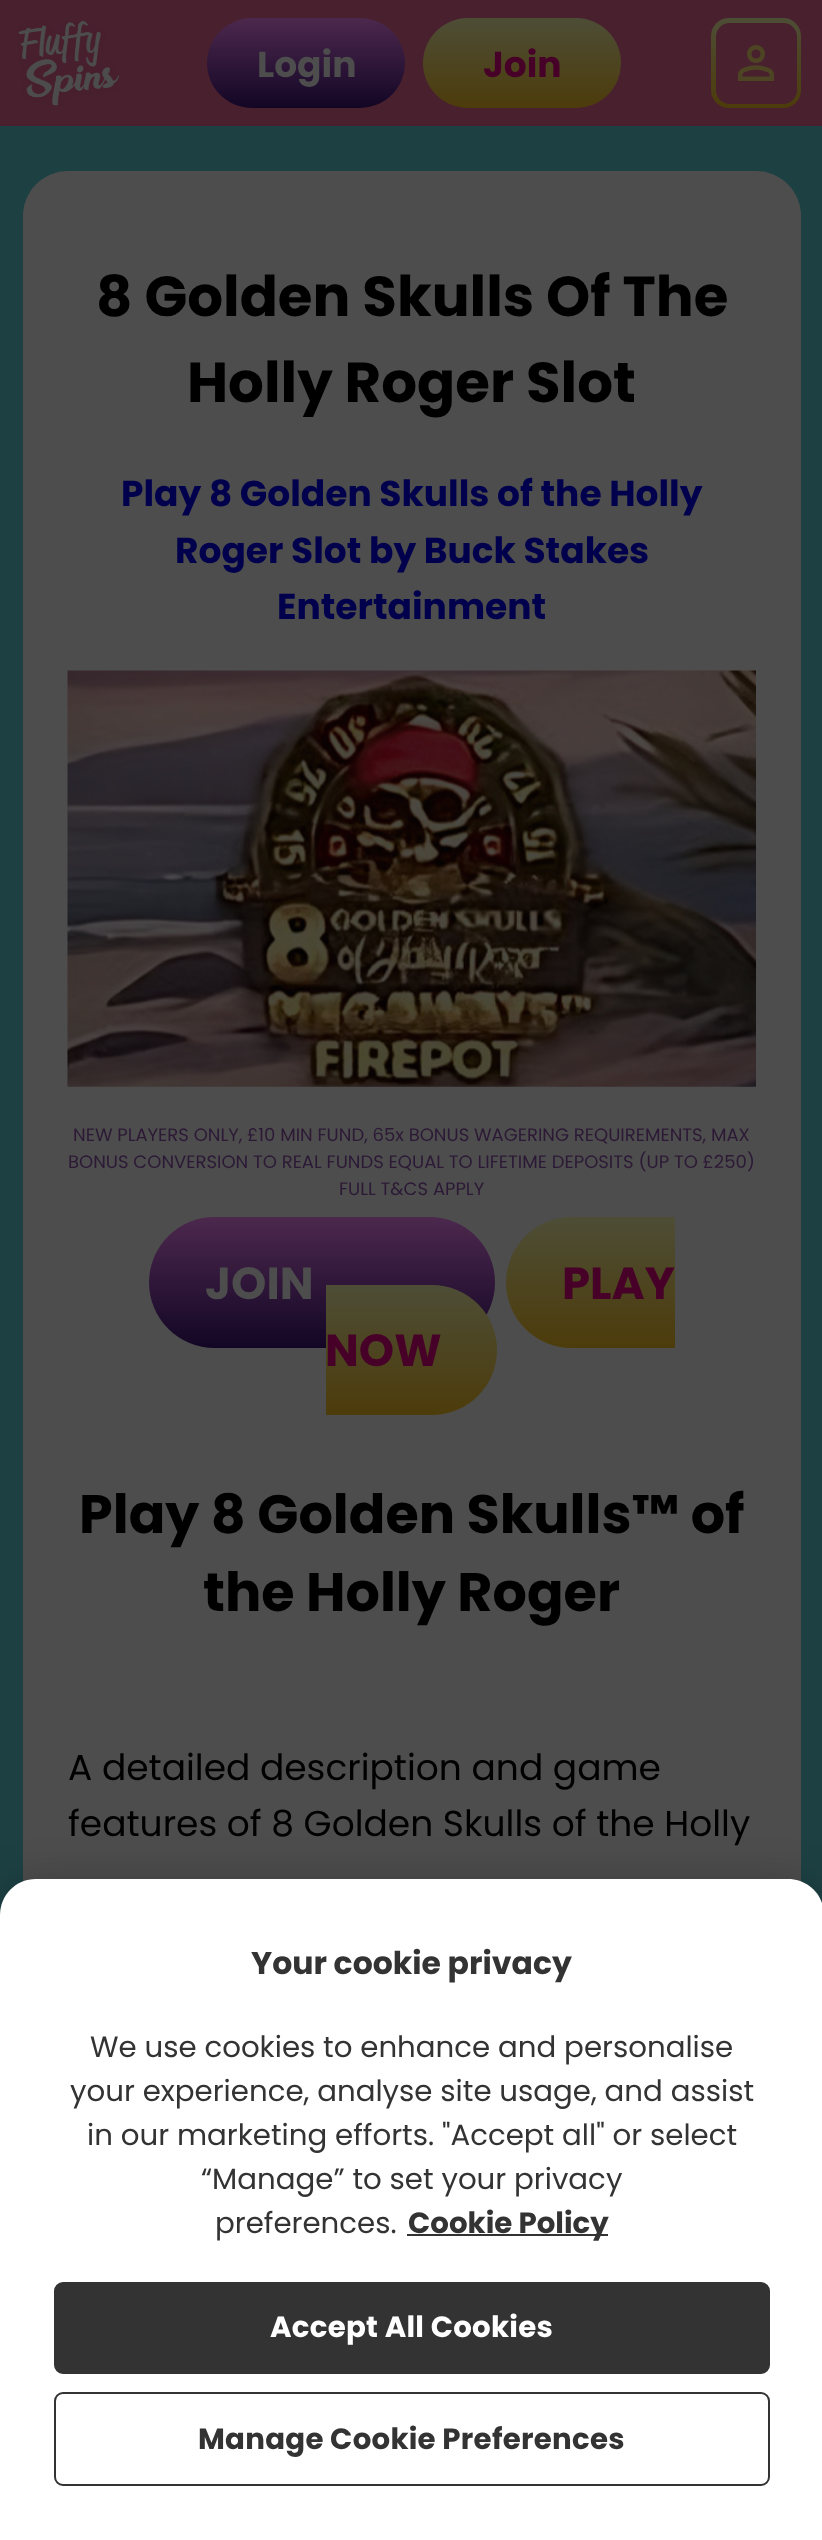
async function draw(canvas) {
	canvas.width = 822;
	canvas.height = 2540;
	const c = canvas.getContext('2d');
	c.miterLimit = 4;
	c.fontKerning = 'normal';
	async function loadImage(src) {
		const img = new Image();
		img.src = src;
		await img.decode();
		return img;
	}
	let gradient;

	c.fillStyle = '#1d4143';
	c.fillRect(0, 0, 822, 2540);
	c.fillStyle = '#49202e';
	c.fillRect(0, 0, 822, 126);
	c.drawImage(await loadImage('img1.png'), 18, 21, 101, 85);
	gradient = c.createLinearGradient(306, 18, 306, 108);
	gradient.addColorStop(0, '#4c284d');
	gradient.addColorStop(1, '#130625');
	c.fillStyle = gradient;
	c.beginPath();
	c.roundRect(207, 18, 198, 90, 45);
	c.fill();
	c.font = 'bold 36px Poppins';
	c.fillStyle = '#4d4d4d';
	c.fillText('Login', 257, 77);
	gradient = c.createLinearGradient(522, 18, 522, 108);
	gradient.addColorStop(0, '#4d4d36');
	gradient.addColorStop(1, '#4d3c0b');
	c.fillStyle = gradient;
	c.beginPath();
	c.roundRect(423, 18, 198, 90, 45);
	c.fill();
	c.fillStyle = '#470027';
	c.fillText('Join', 483, 77);
	gradient = c.createLinearGradient(756, 18, 756, 108);
	gradient.addColorStop(0, '#4d4d36');
	gradient.addColorStop(1, '#4d3c0b');
	c.fillStyle = gradient;
	c.beginPath();
	c.roundRect(711, 18, 90, 90, 18);
	c.fill();
	c.fillStyle = '#49202e';
	c.beginPath();
	c.roundRect(716, 23, 81, 81, 14);
	c.fill();
	c.drawImage(await loadImage('img2.png'), 738, 45, 36, 36);
	c.fillStyle = '#4d4d4d';
	c.beginPath();
	c.roundRect(23, 171, 778, 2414, 45);
	c.fill();
	c.font = 'bold 56.25px Poppins';
	c.fillStyle = '#000';
	c.fillText('8 Golden Skulls Of The', 96, 316);
	c.fillText('Holly Roger Slot', 187, 402);
	c.font = 'bold 36px Poppins';
	c.fillStyle = '#00004d';
	for (const [text, x, y] of [
		['Play 8 Golden Skulls of the Holly', 121, 506],
		['Roger Slot by Buck Stakes', 175, 563],
		['Entertainment', 277, 619],
	]) {
		c.fillText(text, x, y);
	}
	c.drawImage(await loadImage('img3.png'), 67, 670, 689, 417);
	c.font = '18px Poppins';
	c.fillStyle = '#2c1936';
	for (const [text, x, y] of [
		['NEW PLAYERS ONLY, £10 MIN FUND, 65x BONUS WAGERING REQUIREMENTS, MAX', 73, 1141],
		['BONUS CONVERSION TO REAL FUNDS EQUAL TO LIFETIME DEPOSITS (UP TO £250)', 68, 1168],
		['FULL T&CS APPLY', 339, 1195],
	]) {
		c.fillText(text, x, y);
	}
	gradient = c.createLinearGradient(322, 1217, 322, 1348);
	gradient.addColorStop(0, '#4c284d');
	gradient.addColorStop(1, '#130625');
	c.fillStyle = gradient;
	c.beginPath();
	c.roundRect(149, 1217, 346, 131, 65.5);
	c.fill();
	c.font = 'bold 45px Poppins';
	c.fillStyle = '#4d4d4d';
	c.fillText('JOIN', 205, 1299);
	gradient = c.createLinearGradient(591, 1217, 591, 1348);
	gradient.addColorStop(0, '#4d4d36');
	gradient.addColorStop(1, '#4d3c0b');
	c.fillStyle = gradient;
	c.beginPath();
	c.roundRect(506, 1217, 169, 131, [65.5, 0, 0, 65.5]);
	c.fill();
	c.fillStyle = '#470027';
	c.fillText('PLAY', 562, 1299);
	gradient = c.createLinearGradient(412, 1285, 412, 1415);
	gradient.addColorStop(0, '#4d4d36');
	gradient.addColorStop(1, '#4d3c0b');
	c.fillStyle = gradient;
	c.beginPath();
	c.roundRect(326, 1285, 171, 130, [0, 65, 65, 0]);
	c.fill();
	c.fillStyle = '#470027';
	c.fillText('NOW', 325, 1366);
	c.font = 'bold 54px Poppins';
	c.fillStyle = '#000';
	c.fillText('Play 8 Golden Skulls™ of', 79, 1533);
	c.fillText('the Holly Roger', 203, 1611);
	c.font = '36px Poppins';
	c.fillText('A detailed description and game', 68, 1780);
	c.fillText('features of 8 Golden Skulls of the Holly', 68, 1836);
	c.fillStyle = '#00000033';
	c.filter = 'blur(20px)';
	c.beginPath();
	c.roundRect(0, 1879, 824, 661, 36);
	c.fill();
	c.filter = 'none';
	c.fillStyle = '#fff';
	c.beginPath();
	c.moveTo(36, 1879);
	c.lineTo(788, 1879);
	c.bezierCurveTo(808, 1879, 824, 1895, 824, 1915);
	c.lineTo(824, 2540);
	c.lineTo(0, 2540);
	c.lineTo(0, 1915);
	c.bezierCurveTo(0, 1895, 16, 1879, 36, 1879);
	c.closePath();
	c.fill();
	c.font = 'bold 31.5px Poppins';
	c.fillStyle = '#333';
	c.fillText('Your cookie privacy', 251, 1974);
	c.font = '29.25px Poppins';
	for (const [text, x, y] of [
		['We use cookies to enhance and personalise', 90, 2057],
		['your experience, analyse site usage, and assist', 70, 2101],
		['in our marketing efforts. "Accept all" or select', 87, 2145],
		['“Manage” to set your privacy', 201, 2189],
		['preferences.', 215, 2233],
	]) {
		c.fillText(text, x, y);
	}
	c.fillRect(407, 2234, 201, 2);
	c.font = 'bold 29.25px Poppins';
	c.fillText('Cookie Policy', 408, 2233);
	c.beginPath();
	c.roundRect(55, 2283, 714, 90, 8);
	c.fill();
	c.strokeStyle = '#333';
	c.lineWidth = 2;
	c.stroke();
	c.letterSpacing = '0.25px';
	c.fillStyle = '#fff';
	c.fillText('Accept All Cookies', 270, 2337);
	c.beginPath();
	c.roundRect(55, 2393, 714, 92, 8);
	c.stroke();
	c.fillStyle = '#333';
	c.fillText('Manage Cookie Preferences', 198, 2449);
}

draw(document.querySelector('canvas'));
